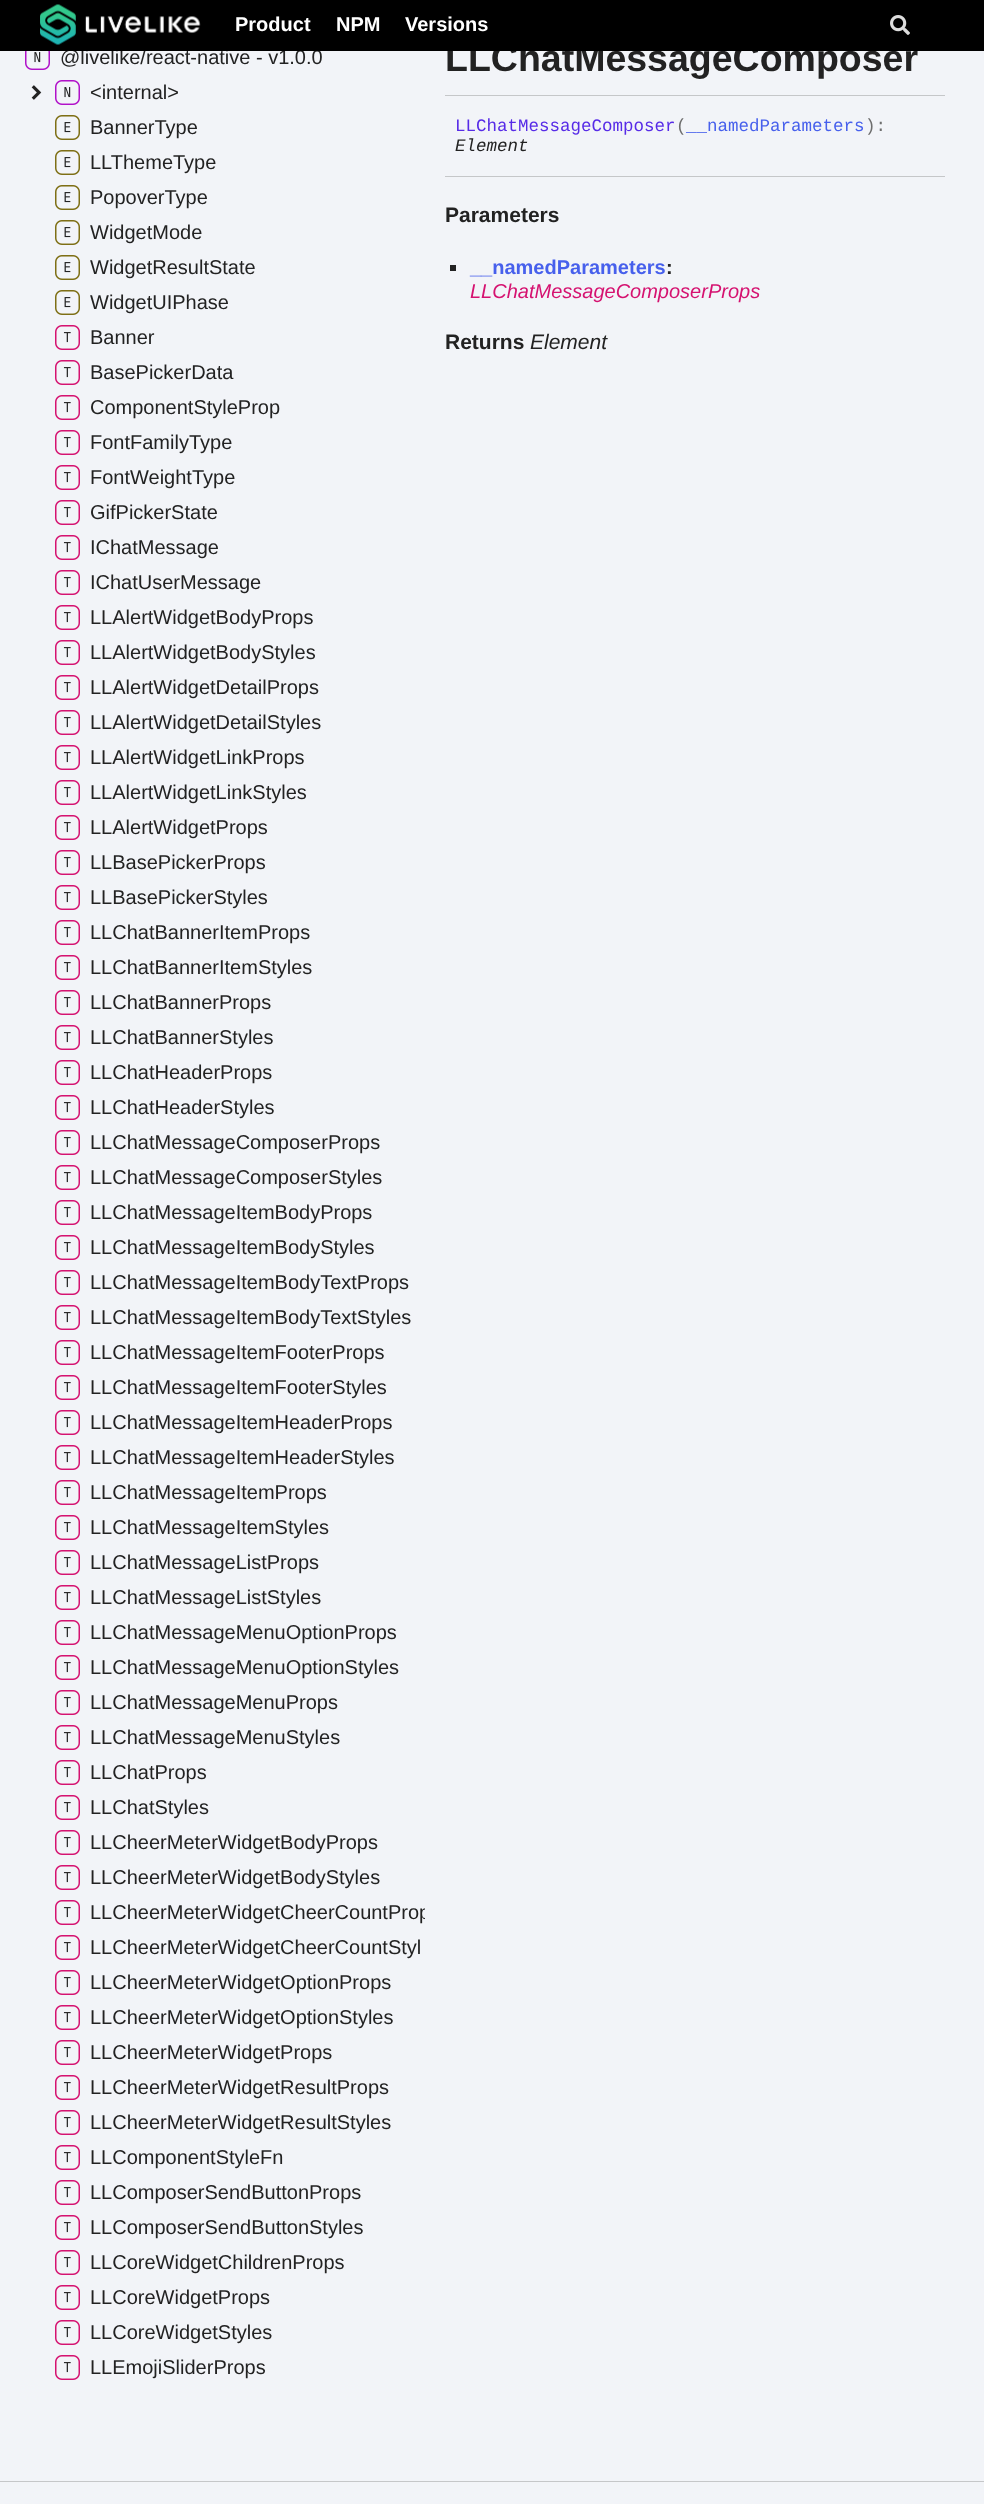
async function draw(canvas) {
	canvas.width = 984;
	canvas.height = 2504;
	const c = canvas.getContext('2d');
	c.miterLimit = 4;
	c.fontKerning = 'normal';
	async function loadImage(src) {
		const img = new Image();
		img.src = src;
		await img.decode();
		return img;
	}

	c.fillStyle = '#f2f4f8';
	c.fillRect(0, 0, 984, 2504);
	c.font = '20px Liberation Sans';
	c.fillStyle = '#222';
	c.fillText('@livelike/react-native - v1.0.0', 60, 64);
	c.font = 'bold 37.5px Liberation Sans';
	c.fillText('LLChatMessageComposer', 445, 71);
	c.fillStyle = '#000';
	c.fillRect(0, 0, 984, 51);
	c.drawImage(await loadImage('img1.png'), 40, 4, 161, 41);
	c.font = 'bold 20px Liberation Sans';
	c.fillStyle = '#fff';
	for (const [text, x, y] of [
		['Product', 235, 31],
		['NPM', 336, 31],
		['Versions', 405, 31],
	]) {
		c.fillText(text, x, y);
	}
	c.drawImage(await loadImage('img2.png'), 890, 15, 20, 20);
	c.drawImage(await loadImage('img3.png'), 25, 51, 25, 19);
	c.drawImage(await loadImage('img4.png'), 31, 85, 11, 15);
	c.drawImage(await loadImage('img5.png'), 55, 80, 25, 25);
	c.font = '20px Liberation Sans';
	c.fillStyle = '#222';
	c.fillText('<internal>', 90, 99);
	c.drawImage(await loadImage('img6.png'), 55, 115, 25, 25);
	c.fillText('BannerType', 90, 134);
	c.drawImage(await loadImage('img6.png'), 55, 150, 25, 25);
	c.fillText('LLThemeType', 90, 169);
	c.drawImage(await loadImage('img6.png'), 55, 185, 25, 25);
	c.fillText('PopoverType', 90, 204);
	c.drawImage(await loadImage('img6.png'), 55, 220, 25, 25);
	c.fillText('WidgetMode', 90, 239);
	c.drawImage(await loadImage('img6.png'), 55, 255, 25, 25);
	c.fillText('WidgetResultState', 90, 274);
	c.drawImage(await loadImage('img6.png'), 55, 290, 25, 25);
	c.fillText('WidgetUIPhase', 90, 309);
	c.drawImage(await loadImage('img7.png'), 55, 325, 25, 25);
	c.fillText('Banner', 90, 344);
	c.drawImage(await loadImage('img7.png'), 55, 360, 25, 25);
	c.fillText('BasePickerData', 90, 379);
	c.drawImage(await loadImage('img7.png'), 55, 395, 25, 25);
	c.fillText('ComponentStyleProp', 90, 414);
	c.drawImage(await loadImage('img7.png'), 55, 430, 25, 25);
	c.fillText('FontFamilyType', 90, 449);
	c.drawImage(await loadImage('img7.png'), 55, 465, 25, 25);
	c.fillText('FontWeightType', 90, 484);
	c.drawImage(await loadImage('img7.png'), 55, 500, 25, 25);
	c.fillText('GifPickerState', 90, 519);
	c.drawImage(await loadImage('img7.png'), 55, 535, 25, 25);
	c.fillText('IChatMessage', 90, 554);
	c.drawImage(await loadImage('img7.png'), 55, 570, 25, 25);
	c.fillText('IChatUserMessage', 90, 589);
	c.drawImage(await loadImage('img7.png'), 55, 605, 25, 25);
	c.fillText('LLAlertWidgetBodyProps', 90, 624);
	c.drawImage(await loadImage('img7.png'), 55, 640, 25, 25);
	c.fillText('LLAlertWidgetBodyStyles', 90, 659);
	c.drawImage(await loadImage('img7.png'), 55, 675, 25, 25);
	c.fillText('LLAlertWidgetDetailProps', 90, 694);
	c.drawImage(await loadImage('img7.png'), 55, 710, 25, 25);
	c.fillText('LLAlertWidgetDetailStyles', 90, 729);
	c.drawImage(await loadImage('img7.png'), 55, 745, 25, 25);
	c.fillText('LLAlertWidgetLinkProps', 90, 764);
	c.drawImage(await loadImage('img7.png'), 55, 780, 25, 25);
	c.fillText('LLAlertWidgetLinkStyles', 90, 799);
	c.drawImage(await loadImage('img7.png'), 55, 815, 25, 25);
	c.fillText('LLAlertWidgetProps', 90, 834);
	c.drawImage(await loadImage('img7.png'), 55, 850, 25, 25);
	c.fillText('LLBasePickerProps', 90, 869);
	c.drawImage(await loadImage('img7.png'), 55, 885, 25, 25);
	c.fillText('LLBasePickerStyles', 90, 904);
	c.drawImage(await loadImage('img7.png'), 55, 920, 25, 25);
	c.fillText('LLChatBannerItemProps', 90, 939);
	c.drawImage(await loadImage('img7.png'), 55, 955, 25, 25);
	c.fillText('LLChatBannerItemStyles', 90, 974);
	c.drawImage(await loadImage('img7.png'), 55, 990, 25, 25);
	c.fillText('LLChatBannerProps', 90, 1009);
	c.drawImage(await loadImage('img7.png'), 55, 1025, 25, 25);
	c.fillText('LLChatBannerStyles', 90, 1044);
	c.drawImage(await loadImage('img7.png'), 55, 1060, 25, 25);
	c.fillText('LLChatHeaderProps', 90, 1079);
	c.drawImage(await loadImage('img7.png'), 55, 1095, 25, 25);
	c.fillText('LLChatHeaderStyles', 90, 1114);
	c.drawImage(await loadImage('img7.png'), 55, 1130, 25, 25);
	c.fillText('LLChatMessageComposerProps', 90, 1149);
	c.drawImage(await loadImage('img7.png'), 55, 1165, 25, 25);
	c.fillText('LLChatMessageComposerStyles', 90, 1184);
	c.drawImage(await loadImage('img7.png'), 55, 1200, 25, 25);
	c.fillText('LLChatMessageItemBodyProps', 90, 1219);
	c.drawImage(await loadImage('img7.png'), 55, 1235, 25, 25);
	c.fillText('LLChatMessageItemBodyStyles', 90, 1254);
	c.drawImage(await loadImage('img7.png'), 55, 1270, 25, 25);
	c.fillText('LLChatMessageItemBodyTextProps', 90, 1289);
	c.drawImage(await loadImage('img7.png'), 55, 1305, 25, 25);
	c.fillText('LLChatMessageItemBodyTextStyles', 90, 1324);
	c.drawImage(await loadImage('img7.png'), 55, 1340, 25, 25);
	c.fillText('LLChatMessageItemFooterProps', 90, 1359);
	c.drawImage(await loadImage('img7.png'), 55, 1375, 25, 25);
	c.fillText('LLChatMessageItemFooterStyles', 90, 1394);
	c.drawImage(await loadImage('img7.png'), 55, 1410, 25, 25);
	c.fillText('LLChatMessageItemHeaderProps', 90, 1429);
	c.drawImage(await loadImage('img7.png'), 55, 1445, 25, 25);
	c.fillText('LLChatMessageItemHeaderStyles', 90, 1464);
	c.drawImage(await loadImage('img7.png'), 55, 1480, 25, 25);
	c.fillText('LLChatMessageItemProps', 90, 1499);
	c.drawImage(await loadImage('img7.png'), 55, 1515, 25, 25);
	c.fillText('LLChatMessageItemStyles', 90, 1534);
	c.drawImage(await loadImage('img7.png'), 55, 1550, 25, 25);
	c.fillText('LLChatMessageListProps', 90, 1569);
	c.drawImage(await loadImage('img7.png'), 55, 1585, 25, 25);
	c.fillText('LLChatMessageListStyles', 90, 1604);
	c.drawImage(await loadImage('img7.png'), 55, 1620, 25, 25);
	c.fillText('LLChatMessageMenuOptionProps', 90, 1639);
	c.drawImage(await loadImage('img7.png'), 55, 1655, 25, 25);
	c.fillText('LLChatMessageMenuOptionStyles', 90, 1674);
	c.drawImage(await loadImage('img7.png'), 55, 1690, 25, 25);
	c.fillText('LLChatMessageMenuProps', 90, 1709);
	c.drawImage(await loadImage('img7.png'), 55, 1725, 25, 25);
	c.fillText('LLChatMessageMenuStyles', 90, 1744);
	c.drawImage(await loadImage('img7.png'), 55, 1760, 25, 25);
	c.fillText('LLChatProps', 90, 1779);
	c.drawImage(await loadImage('img7.png'), 55, 1795, 25, 25);
	c.fillText('LLChatStyles', 90, 1814);
	c.drawImage(await loadImage('img7.png'), 55, 1830, 25, 25);
	c.fillText('LLCheerMeterWidgetBodyProps', 90, 1849);
	c.drawImage(await loadImage('img7.png'), 55, 1865, 25, 25);
	c.fillText('LLCheerMeterWidgetBodyStyles', 90, 1884);
	c.drawImage(await loadImage('img7.png'), 55, 1900, 25, 25);
	c.save();
	c.beginPath();
	c.rect(20, 0, 405, 2381);
	c.clip();
	c.fillText('LLCheerMeterWidgetCheerCountProp', 90, 1919);
	c.restore();
	c.drawImage(await loadImage('img7.png'), 55, 1935, 25, 25);
	c.fillText('LLCheerMeterWidgetCheerCountStyl', 90, 1954);
	c.drawImage(await loadImage('img7.png'), 55, 1970, 25, 25);
	c.fillText('LLCheerMeterWidgetOptionProps', 90, 1989);
	c.drawImage(await loadImage('img7.png'), 55, 2005, 25, 25);
	c.fillText('LLCheerMeterWidgetOptionStyles', 90, 2024);
	c.drawImage(await loadImage('img7.png'), 55, 2040, 25, 25);
	c.fillText('LLCheerMeterWidgetProps', 90, 2059);
	c.drawImage(await loadImage('img7.png'), 55, 2075, 25, 25);
	c.fillText('LLCheerMeterWidgetResultProps', 90, 2094);
	c.drawImage(await loadImage('img7.png'), 55, 2110, 25, 25);
	c.fillText('LLCheerMeterWidgetResultStyles', 90, 2129);
	c.drawImage(await loadImage('img7.png'), 55, 2145, 25, 25);
	c.fillText('LLComponentStyleFn', 90, 2164);
	c.drawImage(await loadImage('img7.png'), 55, 2180, 25, 25);
	c.fillText('LLComposerSendButtonProps', 90, 2199);
	c.drawImage(await loadImage('img7.png'), 55, 2215, 25, 25);
	c.fillText('LLComposerSendButtonStyles', 90, 2234);
	c.drawImage(await loadImage('img7.png'), 55, 2250, 25, 25);
	c.fillText('LLCoreWidgetChildrenProps', 90, 2269);
	c.drawImage(await loadImage('img7.png'), 55, 2285, 25, 25);
	c.fillText('LLCoreWidgetProps', 90, 2304);
	c.drawImage(await loadImage('img7.png'), 55, 2320, 25, 25);
	c.fillText('LLCoreWidgetStyles', 90, 2339);
	c.drawImage(await loadImage('img7.png'), 55, 2355, 25, 25);
	c.fillText('LLEmojiSliderProps', 90, 2374);
	c.fillStyle = '#c5c7c9';
	c.fillRect(445, 95, 500, 1);
	c.fillRect(445, 176, 500, 1);
	c.font = '17.5px Liberation Mono';
	c.fillStyle = '#572be7';
	c.fillText('LLChatMessageComposer', 455, 131);
	c.fillStyle = '#6e6e6e';
	c.fillText('(', 676, 131);
	c.fillStyle = '#4760ec';
	c.fillText('__namedParameters', 686, 131);
	c.fillStyle = '#6e6e6e';
	c.fillText('):', 865, 131);
	c.font = 'italic 17.5px Liberation Mono';
	c.fillStyle = '#222';
	c.fillText('Element', 455, 151);
	c.font = 'bold 21px Liberation Sans';
	c.fillText('Parameters', 445, 222);
	c.fillRect(450, 265, 6, 6);
	c.font = 'bold 20px Liberation Sans';
	c.fillStyle = '#4760ec';
	c.fillText('__namedParameters', 470, 274);
	c.fillStyle = '#222';
	c.fillText(':', 666, 274);
	c.font = 'italic 20px Liberation Sans';
	c.fillStyle = '#d51270';
	c.fillText('LLChatMessageComposerProps', 470, 298);
	c.font = 'bold 21px Liberation Sans';
	c.fillStyle = '#222';
	c.fillText('Returns', 445, 349);
	c.font = 'italic 21px Liberation Sans';
	c.fillText('Element', 530, 349);
	c.fillStyle = '#c5c7c9';
	c.fillRect(0, 2481, 984, 1);
}

draw(document.querySelector('canvas'));
